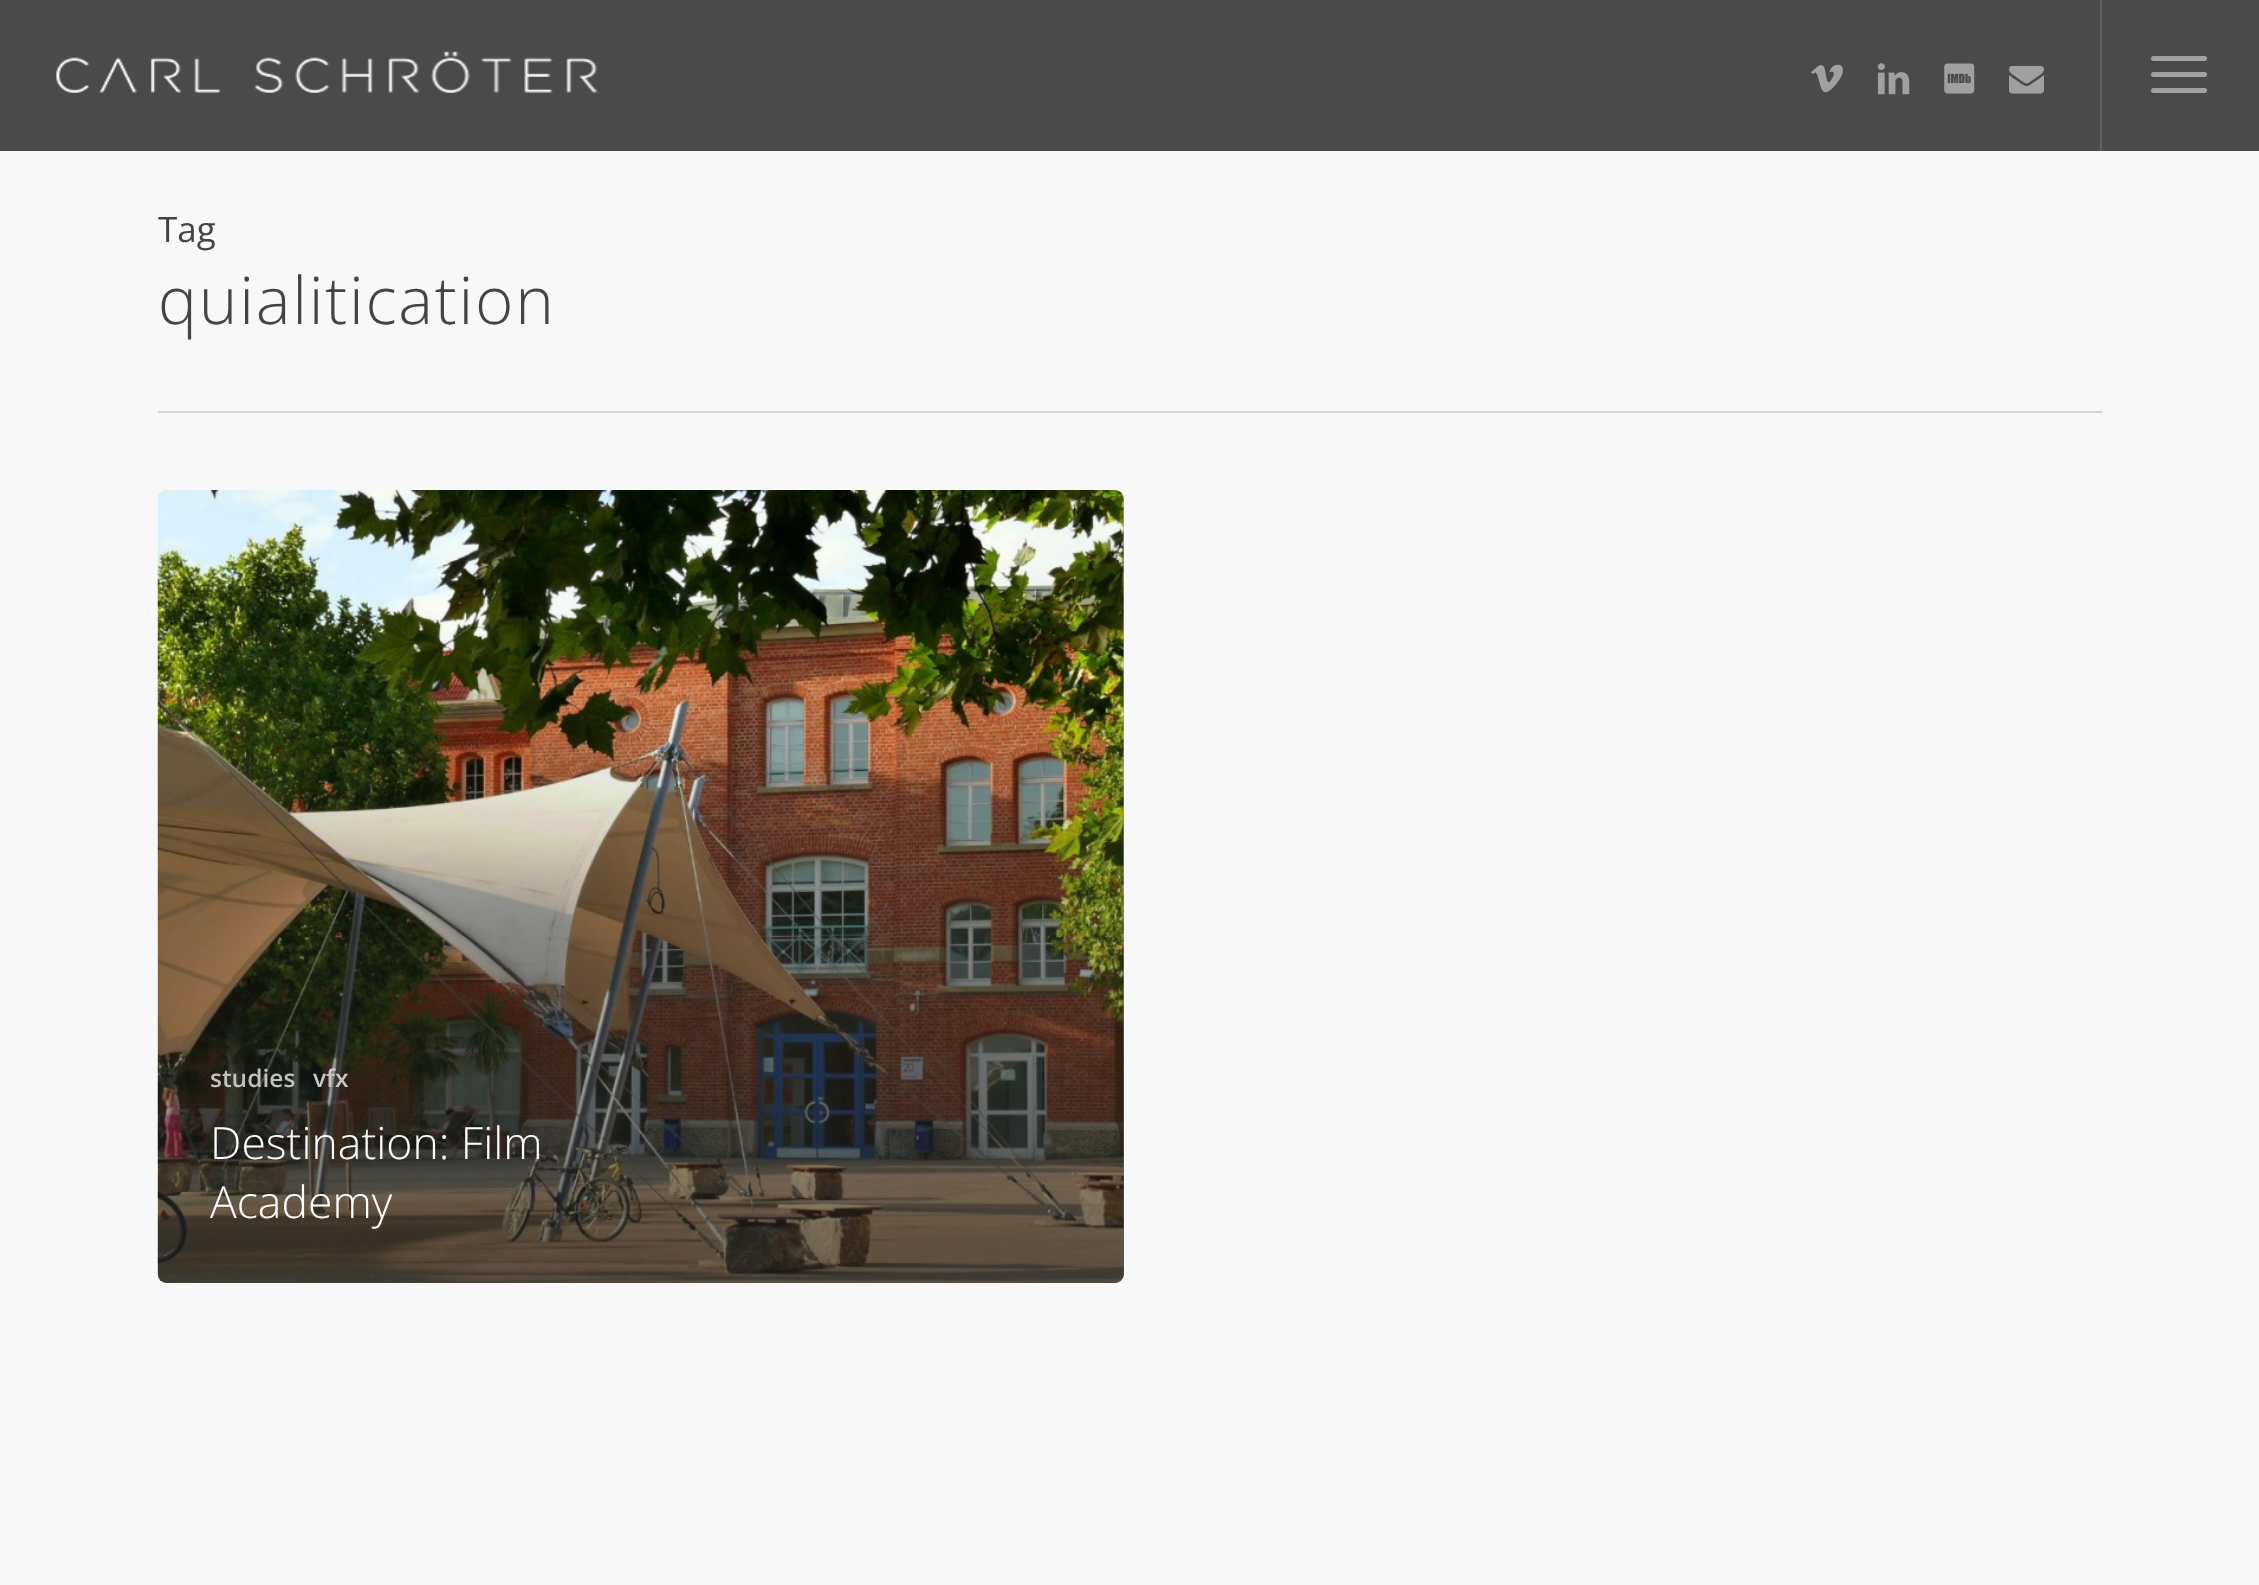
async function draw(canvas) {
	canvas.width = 2259;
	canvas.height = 1585;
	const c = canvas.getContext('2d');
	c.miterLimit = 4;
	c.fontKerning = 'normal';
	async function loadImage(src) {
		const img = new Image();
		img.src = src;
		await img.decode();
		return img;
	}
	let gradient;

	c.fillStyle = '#f8f8f8';
	c.fillRect(0, 0, 2259, 1585);
	c.fillStyle = '#4a4a4a';
	c.fillRect(0, 0, 2259, 151);
	c.drawImage(await loadImage('img1.png'), 56, 51, 542, 42);
	c.drawImage(await loadImage('img2.png'), 1811, 64, 32, 29);
	c.drawImage(await loadImage('img3.png'), 1877, 63, 33, 32);
	c.drawImage(await loadImage('img4.png'), 1944, 63, 31, 31);
	c.drawImage(await loadImage('img5.png'), 2009, 66, 35, 28);
	c.fillStyle = '#626262';
	c.fillRect(2100, 0, 2, 151);
	c.fillStyle = '#a0a0a0';
	c.beginPath();
	c.roundRect(2151, 56, 56, 5, 2.5);
	c.fill();
	c.beginPath();
	c.roundRect(2151, 88, 56, 5, 2.5);
	c.fill();
	c.beginPath();
	c.roundRect(2151, 72, 56, 5, 2.5);
	c.fill();
	c.fillStyle = '#d3d3d3';
	c.fillRect(158, 411, 1944, 2);
	c.font = '35px Open Sans';
	c.fillStyle = '#444';
	c.fillText('Tag', 158, 242);
	c.letterSpacing = '1.75px';
	c.font = '300 65.5px Open Sans';
	c.fillText('quialitication', 158, 324);
	c.fillStyle = '#afafaf';
	c.beginPath();
	c.roundRect(158, 490, 966, 793, 9);
	c.fill();
	c.drawImage(await loadImage('img6.png'), 157, 490, 967, 793);
	gradient = c.createLinearGradient(642, 690, 642, 1288);
	gradient.addColorStop(0, '#23232300');
	gradient.addColorStop(1, '#232323a6');
	c.fillStyle = gradient;
	c.beginPath();
	c.roundRect(158, 690, 966, 593, [0, 0, 9, 9]);
	c.fill();
	c.letterSpacing = '0px';
	c.font = '600 24.5px Open Sans';
	c.fillStyle = '#c0c1be';
	c.fillText('studies', 210, 1087);
	c.fillStyle = '#c7c6c4';
	c.fillText('vfx', 313, 1087);
	c.font = '300 44.5px Open Sans';
	c.fillStyle = '#fff';
	c.fillText('Destination: Film', 210, 1159);
	c.fillText('Academy', 210, 1218);
}

draw(document.querySelector('canvas'));
